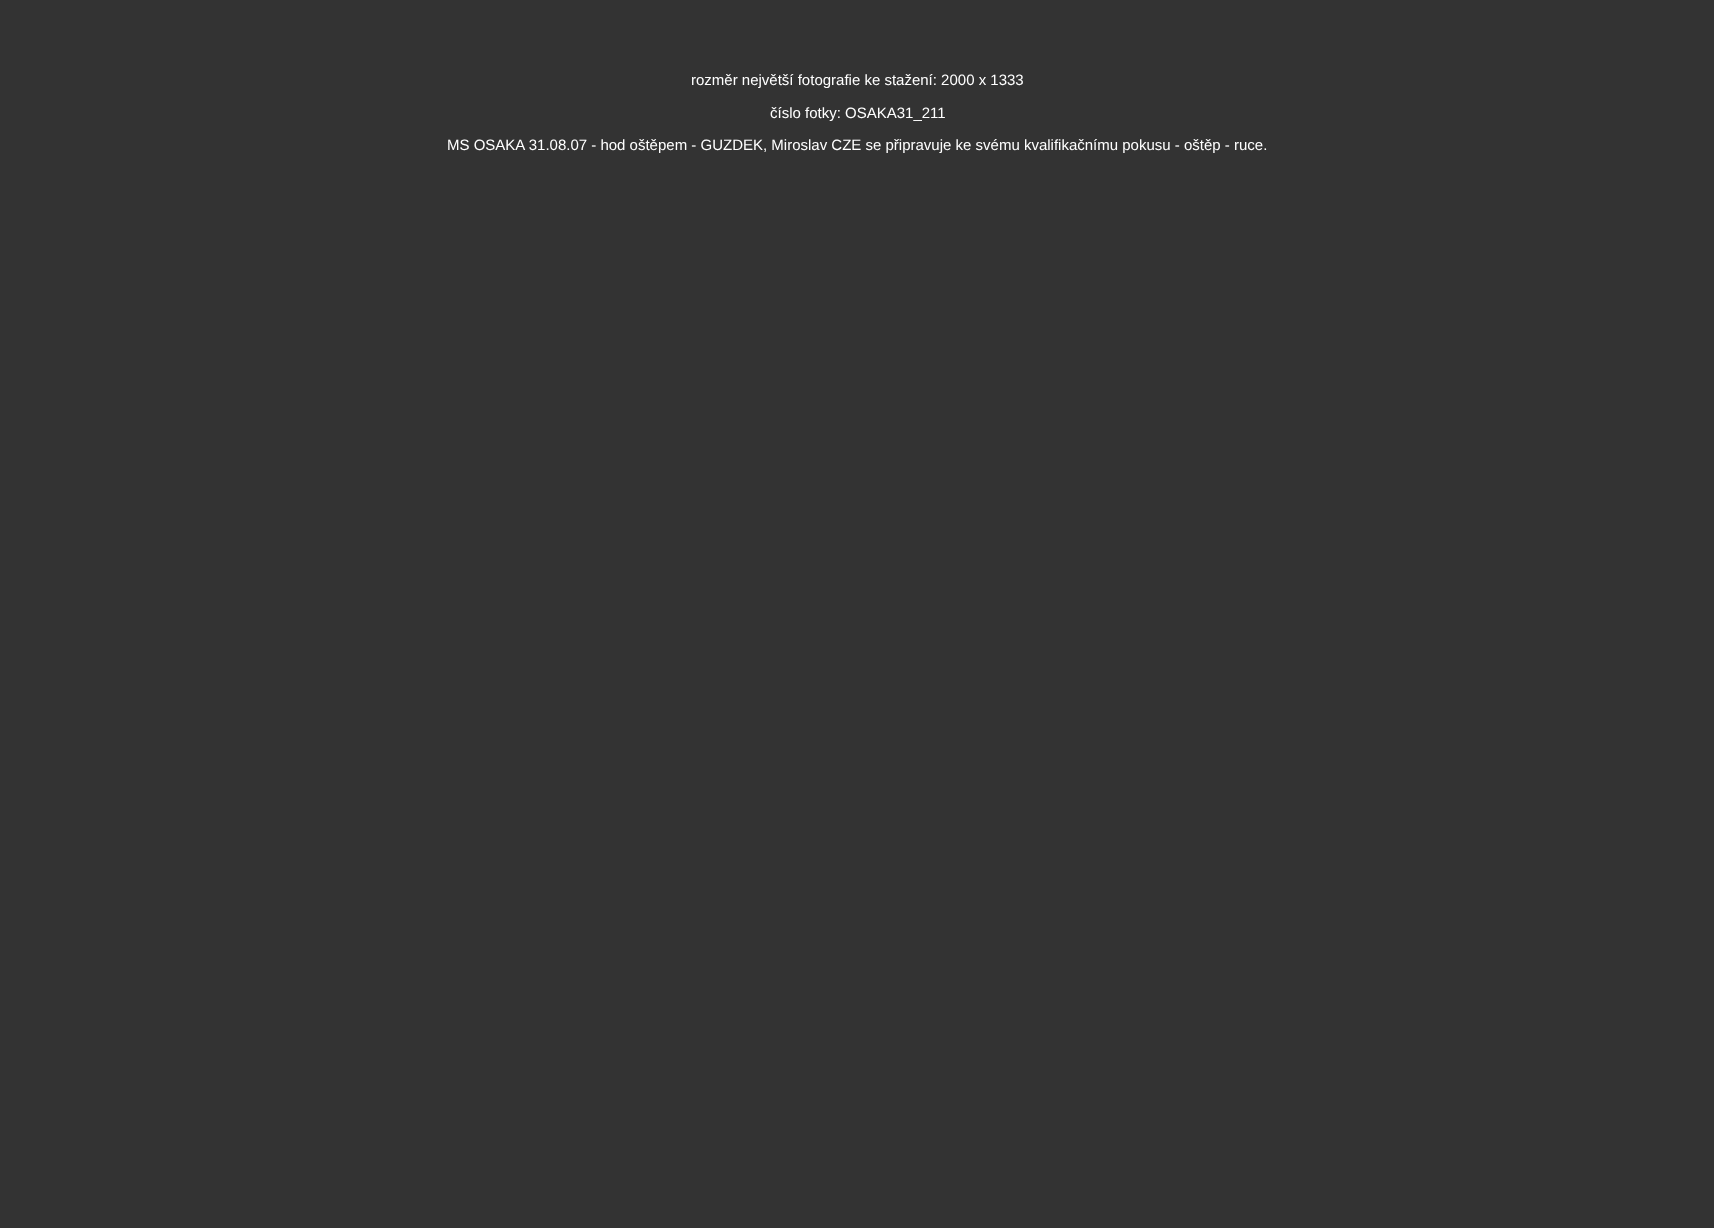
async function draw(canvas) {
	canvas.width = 1714;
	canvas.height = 1228;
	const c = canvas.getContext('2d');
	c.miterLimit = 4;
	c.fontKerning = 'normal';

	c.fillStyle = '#333';
	c.fillRect(0, 0, 1714, 1228);
	c.font = '15px Liberation Sans';
	c.fillStyle = '#fff';
	for (const [text, x, y] of [
		['rozměr největší fotografie ke stažení: 2000 x 1333', 691, 85],
		['číslo fotky: OSAKA31_211', 770, 118],
		['MS OSAKA 31.08.07 - hod oštěpem - GUZDEK, Miroslav CZE se připravuje ke svému kvalifikačnímu pokusu - oštěp - ruce.', 447, 150],
	]) {
		c.fillText(text, x, y);
	}
}

draw(document.querySelector('canvas'));
